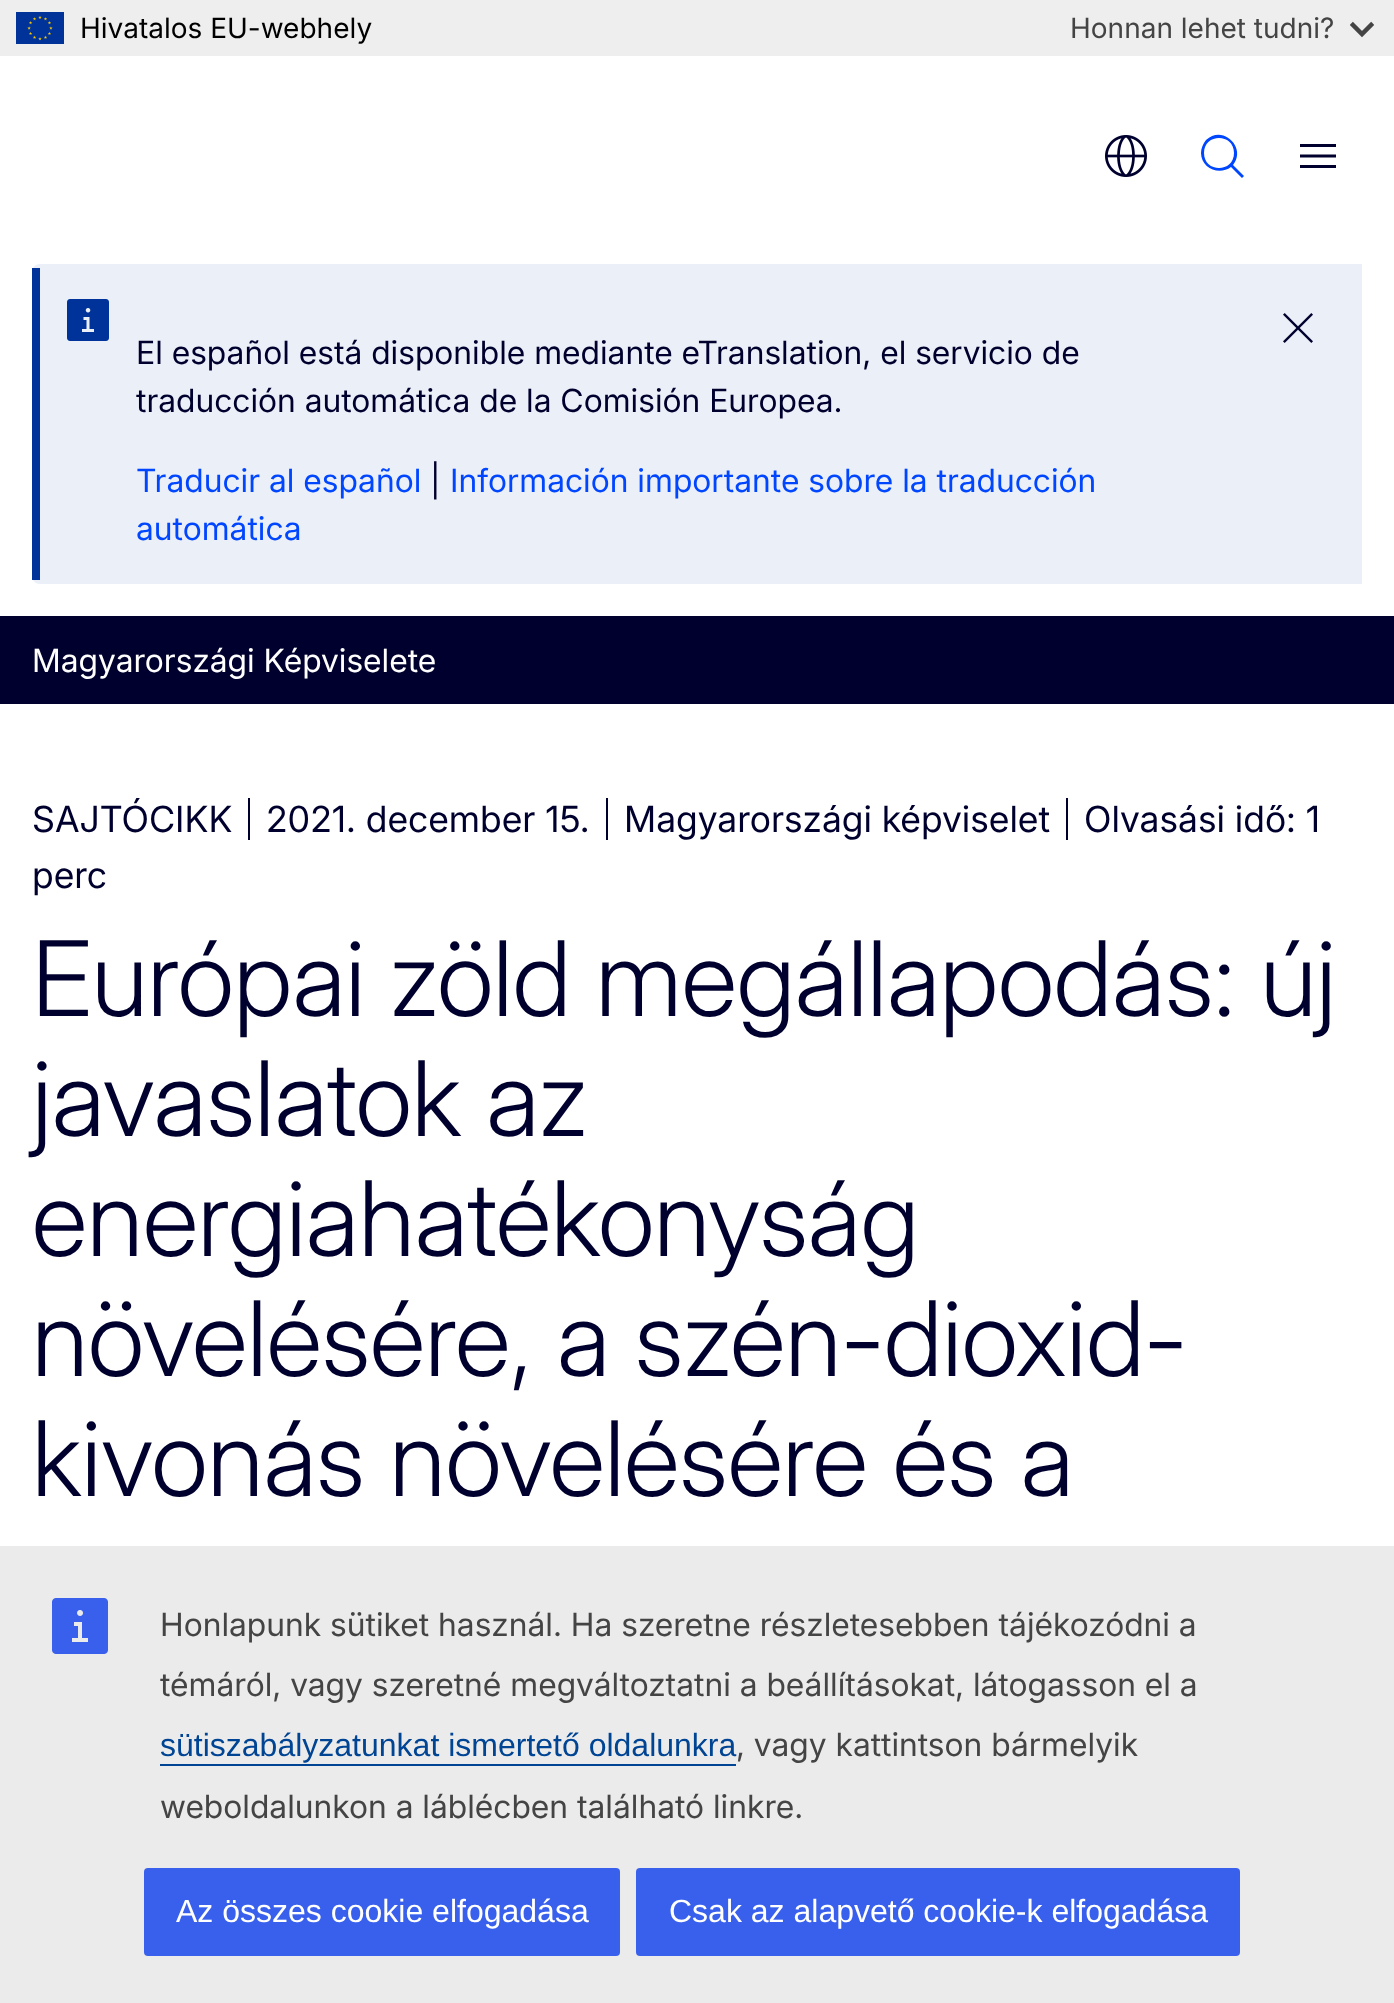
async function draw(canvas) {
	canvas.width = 1394;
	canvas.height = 2003;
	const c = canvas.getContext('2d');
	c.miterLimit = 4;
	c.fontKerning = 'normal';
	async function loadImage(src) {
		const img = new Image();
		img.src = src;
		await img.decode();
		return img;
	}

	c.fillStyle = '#fff';
	c.fillRect(0, 0, 1394, 2003);
	c.fillStyle = '#eee';
	c.fillRect(0, 0, 1394, 56);
	c.drawImage(await loadImage('img1.png'), 16, 12, 48, 32);
	c.font = '28px "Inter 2"';
	c.fillStyle = '#000';
	c.fillText('Hivatalos EU-webhely', 80, 38);
	c.fillStyle = '#444';
	c.fillText('Honnan lehet tudni?', 1070, 38);
	c.drawImage(await loadImage('img2.png'), 1350, 21, 24, 17);
	c.drawImage(await loadImage('img3.png'), 1105, 135, 42, 42);
	c.fillStyle = '#0046ff';
	c.beginPath();
	c.moveTo(1201, 153);
	c.bezierCurveTo(1201, 148, 1203, 144, 1206, 140);
	c.bezierCurveTo(1223, 124, 1247, 148, 1233, 165);
	c.lineTo(1244, 176);
	c.lineTo(1242, 178);
	c.lineTo(1231, 167);
	c.bezierCurveTo(1219, 176, 1201, 168, 1201, 153);
	c.moveTo(1234, 153);
	c.bezierCurveTo(1234, 133, 1204, 133, 1204, 153);
	c.bezierCurveTo(1204, 173, 1234, 173, 1234, 153);
	c.fill('evenodd');
	c.fillStyle = '#00002e';
	c.beginPath();
	c.moveTo(1336, 144);
	c.lineTo(1300, 144);
	c.lineTo(1300, 147);
	c.lineTo(1336, 147);
	c.closePath();
	c.moveTo(1336, 165);
	c.lineTo(1300, 165);
	c.lineTo(1300, 168);
	c.lineTo(1336, 168);
	c.closePath();
	c.moveTo(1300, 154.5);
	c.lineTo(1336, 154.5);
	c.lineTo(1336, 157.5);
	c.lineTo(1300, 157.5);
	c.closePath();
	c.fill('evenodd');
	c.fillStyle = '#ebeff7';
	c.beginPath();
	c.roundRect(32, 264, 1330, 320, [8, 0, 0, 8]);
	c.fill();
	c.fillStyle = '#039';
	c.fillRect(32, 268, 8, 312);
	c.drawImage(await loadImage('img4.png'), 67, 299, 42, 42);
	c.drawImage(await loadImage('img5.png'), 1283, 313, 30, 30);
	c.font = '32px "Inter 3"';
	c.fillStyle = '#00002e';
	c.fillText('El español está disponible mediante eTranslation, el servicio de', 136, 364);
	c.fillText('traducción automática de la Comisión Europea.', 136, 412);
	c.fillStyle = '#0046ff';
	c.fillText('Traducir al español', 136, 492);
	c.fillStyle = '#00002e';
	c.fillText('|', 430, 492);
	c.fillStyle = '#0046ff';
	c.fillText('Información importante sobre la traducción', 450, 492);
	c.fillText('automática', 136, 540);
	c.fillStyle = '#00002e';
	c.fillRect(0, 616, 1394, 88);
	c.fillStyle = '#fff';
	c.fillText('Magyarországi Képviselete', 32, 672);
	c.font = '36px Inter';
	c.fillStyle = '#00002e';
	c.fillText('SAJTÓCIKK', 32, 832);
	c.fillRect(248, 798, 2, 42);
	c.fillText('2021. december 15.', 266, 832);
	c.fillRect(606, 798, 2, 42);
	c.fillText('Magyarországi képviselet', 624, 832);
	c.fillRect(1066, 798, 2, 42);
	c.fillText('Olvasási idő: 1', 1084, 832);
	c.fillText('perc', 32, 888);
	c.font = '300 104px Inter';
	for (const [text, x, y] of [
		['Európai zöld megállapodás: új', 32, 1016],
		['javaslatok az', 32, 1136],
		['energiahatékonyság', 32, 1256],
		['növelésére, a szén-dioxid-', 32, 1376],
		['kivonás növelésére és a', 32, 1496],
	]) {
		c.fillText(text, x, y);
	}
	c.fillStyle = '#ebebeb';
	c.fillRect(0, 1546, 1394, 457);
	c.drawImage(await loadImage('img6.png'), 52, 1598, 56, 56);
	c.font = '32px "Inter 3"';
	c.fillStyle = '#444';
	c.fillText('Honlapunk sütiket használ. Ha szeretne részletesebben tájékozódni a', 160, 1636);
	c.fillText('témáról, vagy szeretné megváltoztatni a beállításokat, látogasson el a', 160, 1696);
	c.font = '32px Liberation Sans';
	c.fillStyle = '#004494';
	c.fillText('sütiszabályzatunkat ismertető oldalunkra', 160, 1756);
	c.fillRect(160, 1764, 576, 2);
	c.font = '32px "Inter 3"';
	c.fillStyle = '#444';
	c.fillText(', vagy kattintson bármelyik', 736, 1756);
	c.fillText('weboldalunkon a láblécben található linkre.', 160, 1818);
	c.fillStyle = '#3860ed';
	c.beginPath();
	c.roundRect(144, 1868, 476, 88, 4);
	c.fill();
	c.font = '32px Liberation Sans';
	c.fillStyle = '#fff';
	c.fillText('Az összes cookie elfogadása', 176, 1922);
	c.fillStyle = '#3860ed';
	c.beginPath();
	c.roundRect(636, 1868, 604, 88, 4);
	c.fill();
	c.fillStyle = '#fff';
	c.fillText('Csak az alapvető cookie-k elfogadása', 669, 1922);
}

draw(document.querySelector('canvas'));
